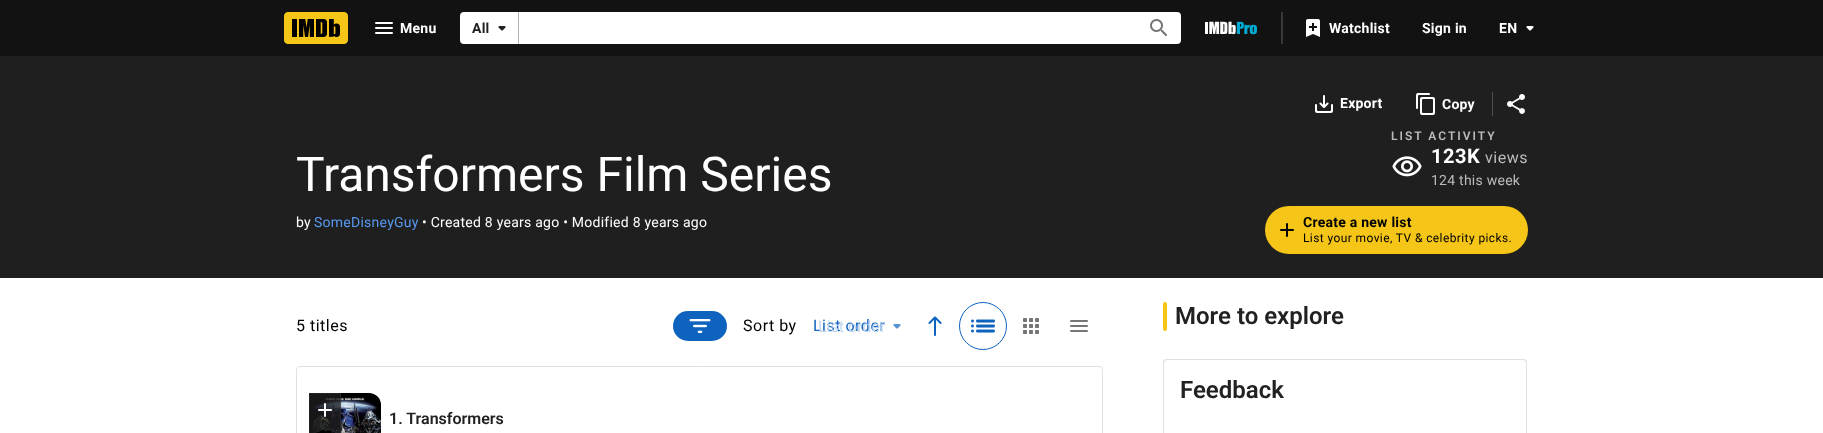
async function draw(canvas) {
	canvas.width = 1823;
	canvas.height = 433;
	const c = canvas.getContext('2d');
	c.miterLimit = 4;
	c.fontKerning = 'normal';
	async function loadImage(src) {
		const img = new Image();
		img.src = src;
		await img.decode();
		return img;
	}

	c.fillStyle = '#fff';
	c.fillRect(0, 0, 1823, 433);
	c.fillStyle = '#121212';
	c.fillRect(0, 0, 1823, 56);
	c.drawImage(await loadImage('img1.png'), 284, 12, 64, 32);
	c.drawImage(await loadImage('img2.png'), 375, 22, 18, 12);
	c.letterSpacing = '0.25px';
	c.font = 'bold 14px Roboto';
	c.fillStyle = '#fff';
	c.fillText('Menu', 400, 33);
	c.beginPath();
	c.roundRect(460, 12, 721, 32, 4);
	c.fill();
	c.fillStyle = '#b3b3b3';
	c.fillRect(518, 12, 1, 32);
	c.fillStyle = '#212121';
	c.fillText('All', 472, 33);
	c.drawImage(await loadImage('img3.png'), 498, 26, 8, 5);
	c.drawImage(await loadImage('img4.png'), 1150, 19, 17, 17);
	c.drawImage(await loadImage('img5.png'), 1205, 21, 52, 14);
	c.fillStyle = '#383838';
	c.fillRect(1281, 12, 2, 32);
	c.drawImage(await loadImage('img6.png'), 1306, 19, 14, 18);
	c.fillStyle = '#fff';
	for (const [text, x, y] of [
		['Watchlist', 1329, 33],
		['Sign in', 1422, 33],
		['EN', 1499, 33],
	]) {
		c.fillText(text, x, y);
	}
	c.drawImage(await loadImage('img7.png'), 1526, 26, 8, 5);
	c.fillStyle = '#1f1f1f';
	c.fillRect(0, 56, 1823, 222);
	c.drawImage(await loadImage('img8.png'), 1315, 95, 18, 18);
	c.fillStyle = '#fff';
	c.fillText('Export', 1340, 108);
	c.drawImage(await loadImage('img9.png'), 1416, 93, 19, 22);
	c.fillText('Copy', 1442, 109);
	c.fillStyle = '#4c4c4c';
	c.fillRect(1492, 92, 1, 24);
	c.drawImage(await loadImage('img10.png'), 1507, 94, 18, 20);
	c.letterSpacing = '0px';
	c.font = '48px Roboto';
	c.fillStyle = '#fff';
	c.fillText('Transformers Film Series', 296, 191);
	c.letterSpacing = '0.25px';
	c.font = '14px Roboto';
	c.fillText('by', 296, 227);
	c.fillStyle = '#5799ef';
	c.fillText('SomeDisneyGuy', 314, 227);
	c.fillStyle = '#fff';
	c.fillText('• Created 8 years ago • Modified 8 years ago', 422, 227);
	c.letterSpacing = '2px';
	c.font = '600 12px Roboto';
	c.fillStyle = '#bcbcbc';
	c.fillText('LIST ACTIVITY', 1391, 140);
	c.drawImage(await loadImage('img11.png'), 1392, 156, 30, 21);
	c.letterSpacing = '0.5px';
	c.font = 'bold 20px Roboto';
	c.fillStyle = '#fff';
	c.fillText('123K', 1431, 163);
	c.font = '16px Roboto';
	c.fillStyle = '#bcbcbc';
	c.fillText('views', 1485, 163);
	c.letterSpacing = '0.25px';
	c.font = '14px Roboto';
	c.fillText('124 this week', 1431, 185);
	c.fillStyle = '#f5c518';
	c.beginPath();
	c.roundRect(1265, 206, 263, 48, 24);
	c.fill();
	c.drawImage(await loadImage('img12.png'), 1280, 223, 14, 14);
	c.font = 'bold 14px Roboto';
	c.fillStyle = '#000';
	c.fillText('Create a new list', 1303, 227);
	c.letterSpacing = '0.4px';
	c.font = '12px Roboto';
	c.fillText('List your movie, TV & celebrity picks.', 1303, 242);
	c.letterSpacing = '0.5px';
	c.font = '16px Roboto';
	c.fillText('5 titles', 296, 331);
	c.fillStyle = '#0e63be';
	c.beginPath();
	c.roundRect(673, 311, 54, 30, 15);
	c.fill();
	c.drawImage(await loadImage('img13.png'), 689, 319, 22, 14);
	c.fillStyle = '#000';
	c.fillText('Sort by', 743, 331);
	c.fillStyle = '#0e63be';
	c.fillText('List order', 813, 331);
	c.letterSpacing = '0px';
	c.fillStyle = '#c3d8ef';
	c.fillText('List order', 818, 332);
	c.drawImage(await loadImage('img14.png'), 893, 324, 8, 5);
	c.drawImage(await loadImage('img15.png'), 928, 316, 14, 20);
	c.beginPath();
	c.arc(983, 326, 23.5, 0, 2 * Math.PI);
	c.strokeStyle = '#0e63be';
	c.stroke();
	c.drawImage(await loadImage('img16.png'), 971, 319, 24, 14);
	c.drawImage(await loadImage('img17.png'), 1023, 318, 16, 16);
	c.drawImage(await loadImage('img18.png'), 1070, 320, 18, 12);
	c.beginPath();
	c.roundRect(296.5, 366.5, 806, 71, 3.5);
	c.strokeStyle = '#e0e0e0';
	c.stroke();
	c.drawImage(await loadImage('img19.png'), 309, 393, 72, 40);
	c.drawImage(await loadImage('img20.png'), 309, 393, 32, 40);
	c.drawImage(await loadImage('img21.png'), 318, 403, 14, 14);
	c.font = '600 16px Roboto';
	c.fillStyle = '#212121';
	c.fillText('1. Transformers', 389, 424);
	c.fillStyle = '#f5c518';
	c.beginPath();
	c.roundRect(1163, 302, 4, 29, 2);
	c.fill();
	c.font = '600 24px Roboto';
	c.fillStyle = '#212121';
	c.fillText('More to explore', 1175, 324);
	c.fillStyle = '#0000001f';
	c.filter = 'blur(0.5px)';
	c.beginPath();
	c.roundRect(1163, 359, 364, 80, 4);
	c.fill();
	c.filter = 'none';
	c.fillStyle = '#fff';
	c.beginPath();
	c.roundRect(1163.5, 359.5, 363, 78, 3.5);
	c.fill();
	c.stroke();
	c.fillStyle = '#212121';
	c.fillText('Feedback', 1180, 398);
}

draw(document.querySelector('canvas'));
